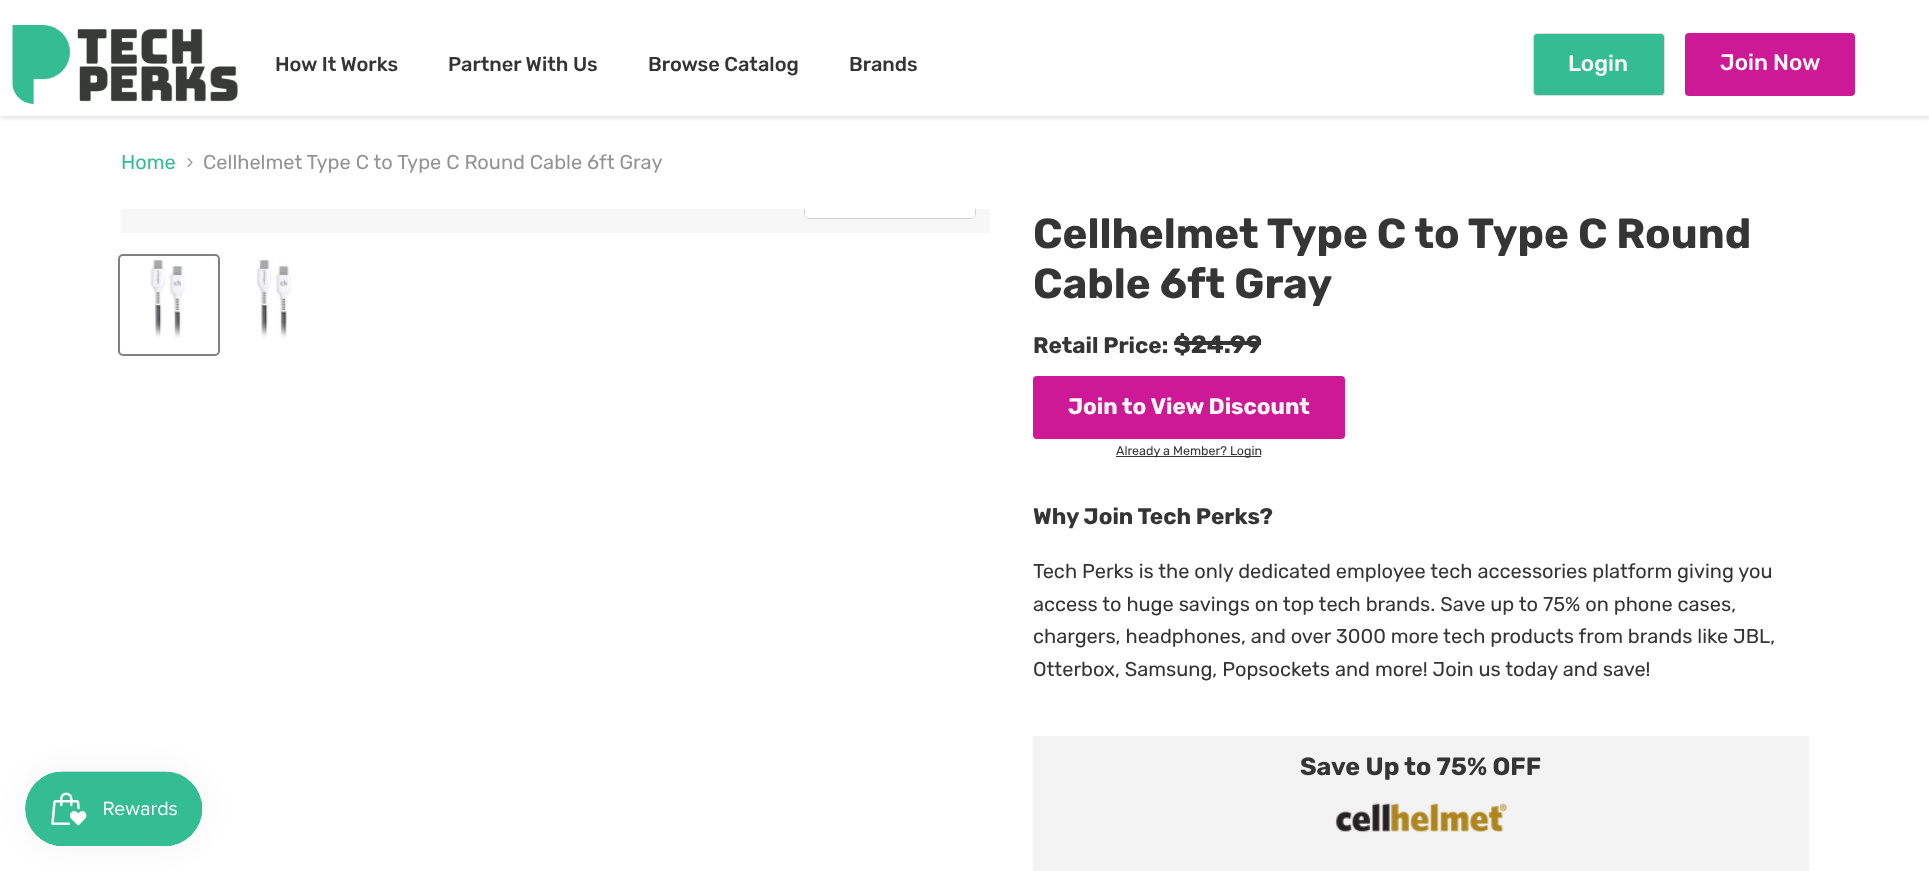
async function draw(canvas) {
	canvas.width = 1929;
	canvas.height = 871;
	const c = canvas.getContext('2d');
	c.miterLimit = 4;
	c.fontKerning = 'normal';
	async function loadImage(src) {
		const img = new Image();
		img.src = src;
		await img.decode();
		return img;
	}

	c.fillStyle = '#fff';
	c.fillRect(0, 0, 1929, 871);
	c.save();
	c.beginPath();
	c.rect(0, 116, 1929, 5);
	c.clip();
	c.fillStyle = '#80808040';
	c.filter = 'blur(2.5px)';
	c.beginPath();
	c.rect(0, 1, 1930, 117);
	c.fill();
	c.filter = 'none';
	c.restore();
	c.drawImage(await loadImage('img1.png'), 12, 25, 226, 79);
	c.font = '500 20px Rubik';
	c.fillStyle = '#353535';
	for (const [text, x, y] of [
		['How It Works', 275, 71],
		['Partner With Us', 448, 71],
		['Browse Catalog', 648, 71],
		['Brands', 849, 71],
	]) {
		c.fillText(text, x, y);
	}
	c.fillStyle = '#34bc93';
	c.beginPath();
	c.roundRect(1533.5, 33.5, 131, 62, 3.5);
	c.fill();
	c.strokeStyle = '#ddd';
	c.stroke();
	c.font = '500 22.5px Rubik';
	c.fillStyle = '#f8f8f6';
	c.fillText('Login', 1568, 71);
	c.fillStyle = '#ce1997';
	c.beginPath();
	c.roundRect(1685, 33, 170, 63, 4);
	c.fill();
	c.fillStyle = '#f8f8f6';
	c.fillText('Join Now', 1720, 70);
	c.font = '20px Rubik';
	c.fillStyle = '#34bc93';
	c.fillText('Home', 121, 169);
	c.drawImage(await loadImage('img2.png'), 187, 158, 6, 9);
	c.fillStyle = '#949494';
	c.fillText('Cellhelmet Type C to Type C Round Cable 6ft Gray', 203, 169);
	c.fillStyle = '#f7f7f7';
	c.fillRect(121, 209, 869, 24);
	c.save();
	c.beginPath();
	c.rect(121, 209, 869, 24);
	c.clip();
	c.beginPath();
	c.roundRect(804.5, 181.5, 171, 37, 4.5);
	c.strokeStyle = '#d2d2d2';
	c.stroke();
	c.restore();
	c.fillStyle = '#ffffffe6';
	c.beginPath();
	c.roundRect(805, 209, 170, 9, [0, 0, 4, 4]);
	c.fill();
	c.beginPath();
	c.roundRect(119, 255, 100, 100, 4);
	c.strokeStyle = '#818181';
	c.lineWidth = 2;
	c.stroke();
	c.drawImage(await loadImage('img3.png'), 150, 259, 35, 80);
	c.drawImage(await loadImage('img4.png'), 256, 259, 36, 80);
	c.font = 'bold 42px Rubik';
	c.fillStyle = '#353535';
	c.fillText('Cellhelmet Type C to Type C Round', 1033, 248);
	c.fillText('Cable 6ft Gray', 1033, 298);
	c.font = 'bold 22.5px Rubik';
	c.fillText('Retail Price:', 1033, 353);
	c.font = 'bold 25px Rubik';
	c.fillText('$24.99', 1174, 353);
	c.fillRect(1174, 341, 87, 4);
	c.fillStyle = '#ce1997';
	c.beginPath();
	c.roundRect(1033, 376, 312, 63, 4);
	c.fill();
	c.font = 'bold 22.5px Rubik';
	c.fillStyle = '#f8f8f6';
	c.fillText('Join to View Discount', 1068, 414);
	c.fillStyle = '#353535';
	c.fillRect(1116, 456, 145, 1);
	c.font = '12.5px Rubik';
	c.fillText('Already a Member? Login', 1116, 455);
	c.font = 'bold 22.5px Rubik';
	c.fillText('Why Join Tech Perks?', 1033, 524);
	c.font = '20px Rubik';
	for (const [text, x, y] of [
		['Tech Perks is the only dedicated employee tech accessories platform giving you', 1033, 578],
		['access to huge savings on top tech brands. Save up to 75% on phone cases,', 1033, 611],
		['chargers, headphones, and over 3000 more tech products from brands like JBL,', 1033, 643],
		['Otterbox, Samsung, Popsockets and more! Join us today and save!', 1033, 676],
	]) {
		c.fillText(text, x, y);
	}
	c.fillStyle = '#f3f3f3';
	c.fillRect(1033, 736, 776, 135);
	c.font = 'bold 25px Rubik';
	c.fillStyle = '#353535';
	c.fillText('Save Up to 75% OFF', 1300, 775);
	c.drawImage(await loadImage('img5.png'), 1335, 803, 173, 30);
	c.fillStyle = '#0000000d';
	c.filter = 'blur(15.5px)';
	c.beginPath();
	c.roundRect(25, 771, 178, 75, 37.5);
	c.fill();
	c.filter = 'none';
	c.drawImage(await loadImage('img6.png'), 25, 771, 178, 75);
}

draw(document.querySelector('canvas'));
